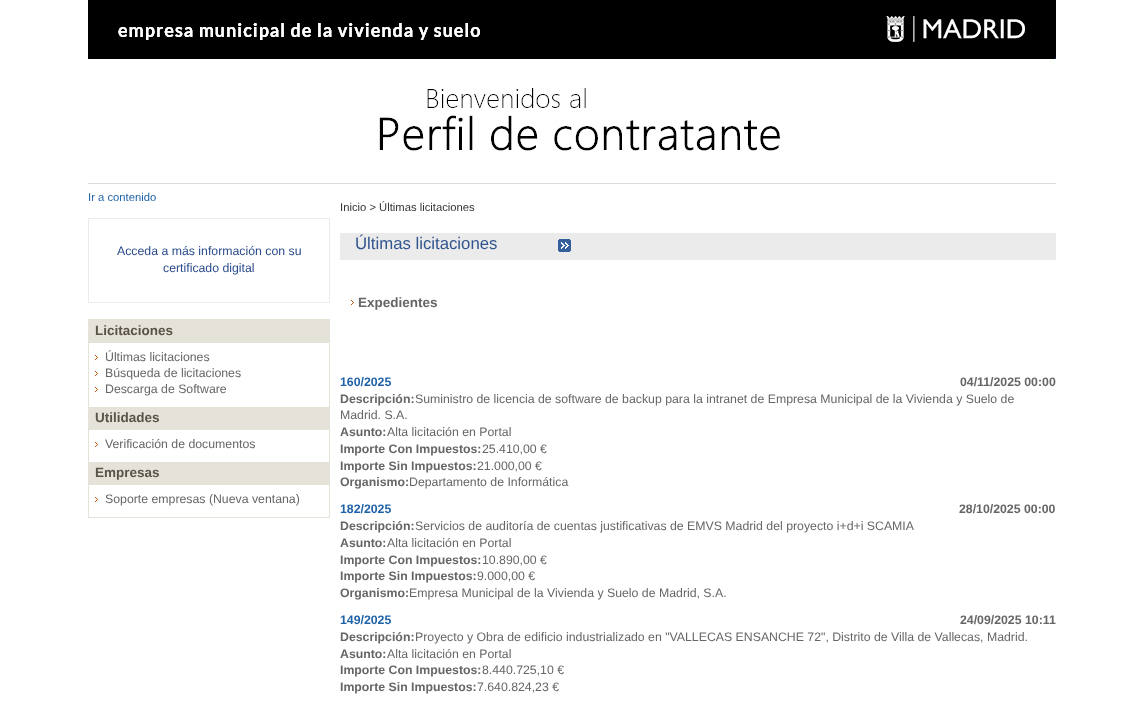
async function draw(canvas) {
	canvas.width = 1144;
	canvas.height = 704;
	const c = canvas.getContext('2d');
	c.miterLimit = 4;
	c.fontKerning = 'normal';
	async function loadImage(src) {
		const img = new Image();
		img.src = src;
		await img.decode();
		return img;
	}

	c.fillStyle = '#fff';
	c.fillRect(0, 0, 1144, 704);
	c.drawImage(await loadImage('img1.png'), 88, 0, 968, 184);
	c.font = '11.25px Liberation Sans';
	c.fillStyle = '#1f62a8';
	c.fillText('Ir a contenido', 88, 201);
	c.strokeStyle = '#ebebeb';
	c.strokeRect(88.5, 218.5, 241, 84);
	c.font = '12.3px Liberation Sans';
	c.fillStyle = '#2a4b8a';
	c.fillText('Acceda a más información con su', 117, 255);
	c.fillText('certificado digital', 163, 272);
	c.strokeStyle = '#e5e2da';
	c.strokeRect(88.5, 319.5, 241, 198);
	c.fillStyle = '#e5e2da';
	c.fillRect(89, 320, 240, 23);
	c.font = 'bold 13.5px Liberation Sans';
	c.fillStyle = '#5a5447';
	c.fillText('Licitaciones', 95, 335);
	c.drawImage(await loadImage('img2.png'), 95, 355, 3, 5);
	c.font = '12.3px Liberation Sans';
	c.fillStyle = '#666';
	c.fillText('Últimas licitaciones', 105, 361);
	c.drawImage(await loadImage('img2.png'), 95, 371, 3, 5);
	c.fillText('Búsqueda de licitaciones', 105, 377);
	c.drawImage(await loadImage('img2.png'), 95, 387, 3, 5);
	c.fillText('Descarga de Software', 105, 393);
	c.fillStyle = '#e5e2da';
	c.fillRect(89, 407, 240, 23);
	c.font = 'bold 13.5px Liberation Sans';
	c.fillStyle = '#5a5447';
	c.fillText('Utilidades', 95, 422);
	c.drawImage(await loadImage('img2.png'), 95, 442, 3, 5);
	c.font = '12.3px Liberation Sans';
	c.fillStyle = '#666';
	c.fillText('Verificación de documentos', 105, 448);
	c.fillStyle = '#e5e2da';
	c.fillRect(89, 462, 240, 23);
	c.font = 'bold 13.5px Liberation Sans';
	c.fillStyle = '#5a5447';
	c.fillText('Empresas', 95, 477);
	c.drawImage(await loadImage('img2.png'), 95, 497, 3, 5);
	c.font = '12.3px Liberation Sans';
	c.fillStyle = '#666';
	c.fillText('Soporte empresas (Nueva ventana)', 105, 503);
	c.font = '11.25px Liberation Sans';
	c.fillStyle = '#333';
	c.fillText('Inicio > Últimas licitaciones', 340, 211);
	c.fillStyle = '#ebebeb';
	c.fillRect(340, 233, 716, 27);
	c.drawImage(await loadImage('img3.png'), 558, 239, 13, 13);
	c.font = '16.75px Liberation Sans';
	c.fillStyle = '#31558e';
	c.fillText('Últimas licitaciones', 355, 249);
	c.drawImage(await loadImage('img2.png'), 351, 300, 3, 5);
	c.font = 'bold 13.5px Liberation Sans';
	c.fillStyle = '#666';
	c.fillText('Expedientes', 358, 307);
	c.font = 'bold 12.3px Liberation Sans';
	c.fillStyle = '#1f62a8';
	c.fillText('160/2025', 340, 386);
	c.fillStyle = '#666';
	c.fillText('04/11/2025 00:00', 960, 386);
	c.fillText('Descripción:', 340, 403);
	c.font = '12.3px Liberation Sans';
	c.fillText('Suministro de licencia de software de backup para la intranet de Empresa Municipal de la Vivienda y Suelo de', 415, 403);
	c.fillText('Madrid. S.A.', 340, 419);
	c.font = 'bold 12.3px Liberation Sans';
	c.fillText('Asunto:', 340, 436);
	c.font = '12.3px Liberation Sans';
	c.fillText('Alta licitación en Portal', 387, 436);
	c.font = 'bold 12.3px Liberation Sans';
	c.fillText('Importe Con Impuestos:', 340, 453);
	c.font = '12.3px Liberation Sans';
	c.fillText('25.410,00 €', 482, 453);
	c.font = 'bold 12.3px Liberation Sans';
	c.fillText('Importe Sin Impuestos:', 340, 470);
	c.font = '12.3px Liberation Sans';
	c.fillText('21.000,00 €', 477, 470);
	c.font = 'bold 12.3px Liberation Sans';
	c.fillText('Organismo:', 340, 486);
	c.font = '12.3px Liberation Sans';
	c.fillText('Departamento de Informática', 409, 486);
	c.font = 'bold 12.3px Liberation Sans';
	c.fillStyle = '#1f62a8';
	c.fillText('182/2025', 340, 513);
	c.fillStyle = '#666';
	c.fillText('28/10/2025 00:00', 959, 513);
	c.fillText('Descripción:', 340, 530);
	c.font = '12.3px Liberation Sans';
	c.fillText('Servicios de auditoría de cuentas justificativas de EMVS Madrid del proyecto i+d+i SCAMIA', 415, 530);
	c.font = 'bold 12.3px Liberation Sans';
	c.fillText('Asunto:', 340, 547);
	c.font = '12.3px Liberation Sans';
	c.fillText('Alta licitación en Portal', 387, 547);
	c.font = 'bold 12.3px Liberation Sans';
	c.fillText('Importe Con Impuestos:', 340, 564);
	c.font = '12.3px Liberation Sans';
	c.fillText('10.890,00 €', 482, 564);
	c.font = 'bold 12.3px Liberation Sans';
	c.fillText('Importe Sin Impuestos:', 340, 580);
	c.font = '12.3px Liberation Sans';
	c.fillText('9.000,00 €', 477, 580);
	c.font = 'bold 12.3px Liberation Sans';
	c.fillText('Organismo:', 340, 597);
	c.font = '12.3px Liberation Sans';
	c.fillText('Empresa Municipal de la Vivienda y Suelo de Madrid, S.A.', 409, 597);
	c.font = 'bold 12.3px Liberation Sans';
	c.fillStyle = '#1f62a8';
	c.fillText('149/2025', 340, 624);
	c.fillStyle = '#666';
	c.fillText('24/09/2025 10:11', 960, 624);
	c.fillText('Descripción:', 340, 641);
	c.font = '12.3px Liberation Sans';
	c.fillText('Proyecto y Obra de edificio industrializado en "VALLECAS ENSANCHE 72", Distrito de Villa de Vallecas, Madrid.', 415, 641);
	c.font = 'bold 12.3px Liberation Sans';
	c.fillText('Asunto:', 340, 658);
	c.font = '12.3px Liberation Sans';
	c.fillText('Alta licitación en Portal', 387, 658);
	c.font = 'bold 12.3px Liberation Sans';
	c.fillText('Importe Con Impuestos:', 340, 674);
	c.font = '12.3px Liberation Sans';
	c.fillText('8.440.725,10 €', 482, 674);
	c.font = 'bold 12.3px Liberation Sans';
	c.fillText('Importe Sin Impuestos:', 340, 691);
	c.font = '12.3px Liberation Sans';
	c.fillText('7.640.824,23 €', 477, 691);
}

draw(document.querySelector('canvas'));
